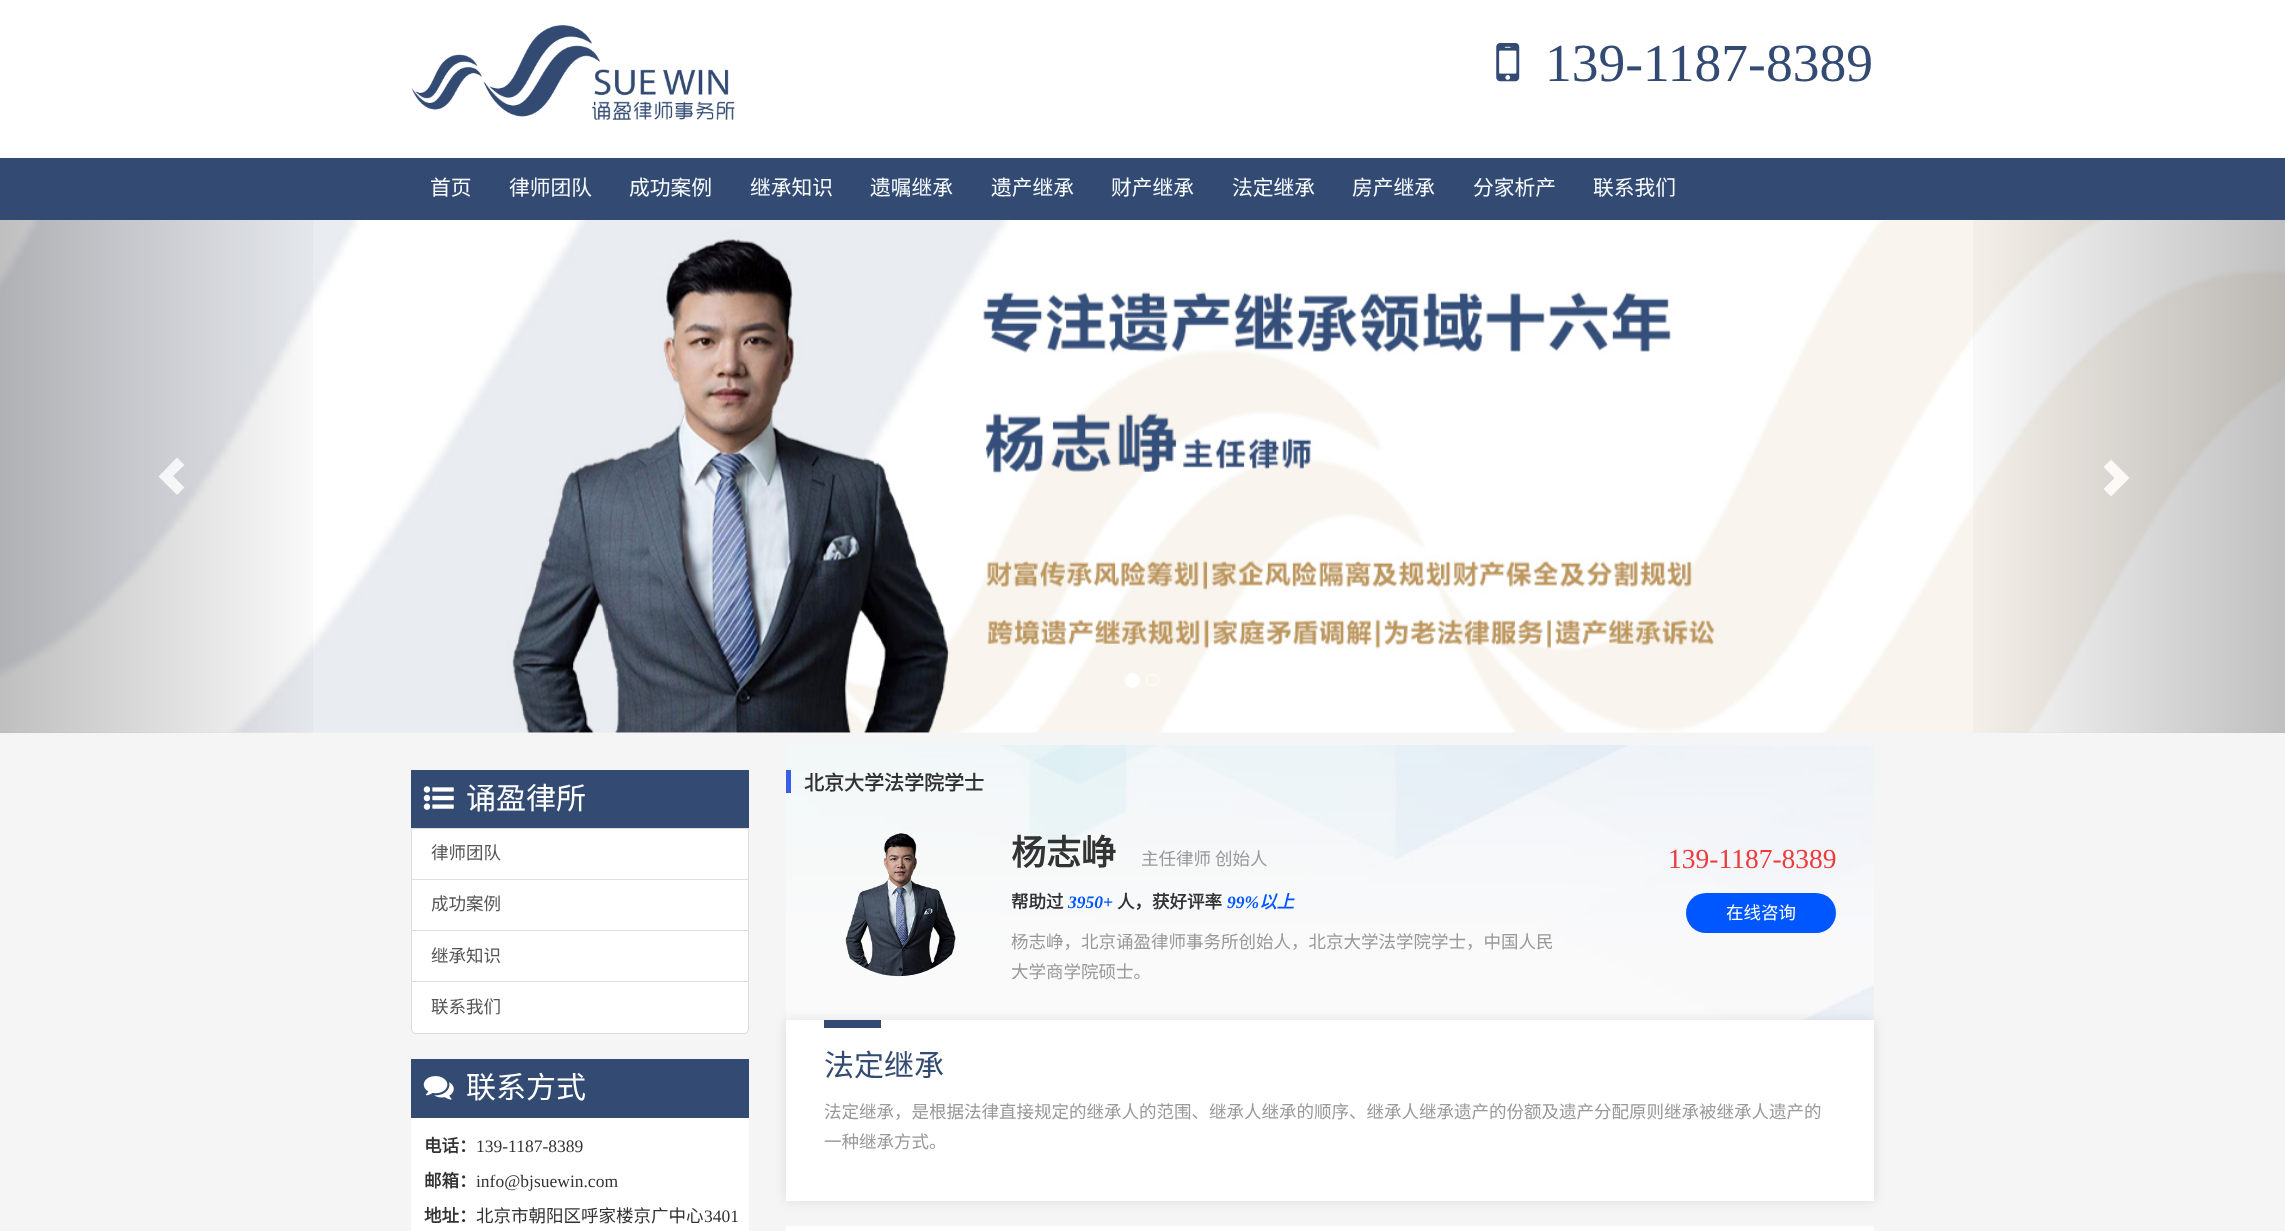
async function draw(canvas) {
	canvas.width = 2285;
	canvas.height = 1231;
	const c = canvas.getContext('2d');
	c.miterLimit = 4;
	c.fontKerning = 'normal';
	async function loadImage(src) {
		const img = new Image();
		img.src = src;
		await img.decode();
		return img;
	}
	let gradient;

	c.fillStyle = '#f5f5f5';
	c.fillRect(0, 0, 2285, 1231);
	c.fillStyle = '#fff';
	c.fillRect(0, 0, 2285, 158);
	c.drawImage(await loadImage('img1.png'), 411, 25, 324, 95);
	c.drawImage(await loadImage('img2.png'), 1496, 43, 24, 39);
	c.font = '53.5px Liberation Serif';
	c.fillStyle = '#334b73';
	c.fillText('139-1187-8389', 1545, 81);
	c.fillRect(0, 158, 2285, 62);
	c.font = '20.75px Noto Sans CJK SC';
	c.fillStyle = '#f7fbfe';
	for (const [text, x, y] of [
		['首页', 430, 195],
		['律师团队', 509, 195],
		['成功案例', 629, 195],
		['继承知识', 750, 195],
		['遗嘱继承', 870, 195],
		['遗产继承', 991, 195],
		['财产继承', 1111, 195],
		['法定继承', 1232, 195],
		['房产继承', 1352, 195],
		['分家析产', 1473, 195],
		['联系我们', 1593, 195],
	]) {
		c.fillText(text, x, y);
	}
	c.drawImage(await loadImage('img3.png'), 0, 220, 2285, 513);
	gradient = c.createLinearGradient(0, 476, 343, 476);
	gradient.addColorStop(0, '#00000040');
	gradient.addColorStop(1, '#00000000');
	c.fillStyle = gradient;
	c.fillRect(0, 220, 313, 513);
	c.fillStyle = '#f4f6f8';
	c.beginPath();
	c.moveTo(158.5, 476.5);
	c.lineTo(177, 495);
	c.lineTo(184.5, 487.5);
	c.lineTo(173, 476);
	c.lineTo(184.5, 465);
	c.lineTo(177, 457.5);
	c.closePath();
	c.fill();
	c.fillStyle = '#fff';
	c.beginPath();
	c.arc(1132.5, 680.5, 7, 0, 2 * Math.PI);
	c.fill();
	c.strokeStyle = '#fff';
	c.stroke();
	c.beginPath();
	c.roundRect(1146.5, 674.5, 12, 11, 5.5);
	c.stroke();
	gradient = c.createLinearGradient(1943, 476, 2285, 476);
	gradient.addColorStop(0, '#00000000');
	gradient.addColorStop(1, '#00000040');
	c.fillStyle = gradient;
	c.fillRect(1973, 220, 312, 513);
	c.fillStyle = '#fcfaf7';
	c.beginPath();
	c.moveTo(2103.5, 489);
	c.lineTo(2114.5, 478);
	c.lineTo(2103.5, 467);
	c.lineTo(2111, 459.5);
	c.lineTo(2129.5, 478);
	c.lineTo(2111, 496.5);
	c.closePath();
	c.fill();
	c.fillStyle = '#334b73';
	c.fillRect(411, 770, 338, 58);
	c.drawImage(await loadImage('img4.png'), 423, 786, 31, 24);
	c.font = '30px Noto Sans CJK SC';
	c.fillStyle = '#fff';
	c.fillText('诵盈律所', 466, 809);
	c.beginPath();
	c.rect(411.5, 828.5, 337, 51);
	c.fill();
	c.strokeStyle = '#ddd';
	c.stroke();
	c.font = '17.5px Noto Sans CJK SC';
	c.fillStyle = '#555';
	c.fillText('律师团队', 431, 859);
	c.fillStyle = '#fff';
	c.beginPath();
	c.rect(411.5, 879.5, 337, 51);
	c.fill();
	c.stroke();
	c.fillStyle = '#555';
	c.fillText('成功案例', 431, 910);
	c.fillStyle = '#fff';
	c.fillRect(412, 931, 336, 50);
	c.strokeRect(411.5, 930.5, 337, 52);
	c.fillStyle = '#555';
	c.fillText('继承知识', 431, 962);
	c.fillStyle = '#fff';
	c.beginPath();
	c.roundRect(411.5, 981.5, 337, 52, [0, 0, 4.5, 4.5]);
	c.fill();
	c.stroke();
	c.fillStyle = '#555';
	c.fillText('联系我们', 431, 1013);
	c.fillStyle = '#fff';
	c.fillRect(411, 1118, 338, 113);
	c.fillStyle = '#334b73';
	c.fillRect(411, 1059, 338, 59);
	c.drawImage(await loadImage('img5.png'), 423, 1076, 31, 24);
	c.font = '30px Noto Sans CJK SC';
	c.fillStyle = '#fff';
	c.fillText('联系方式', 466, 1098);
	c.font = 'bold 17.5px Noto Sans CJK SC';
	c.fillStyle = '#333';
	c.fillText('电话：', 424, 1152);
	c.font = '17.5px Liberation Serif';
	c.fillText('139-1187-8389', 476, 1152);
	c.font = 'bold 17.5px Noto Sans CJK SC';
	c.fillText('邮箱：', 424, 1187);
	c.font = '17.5px Liberation Serif';
	c.fillText('info@bjsuewin.com', 476, 1187);
	c.font = 'bold 17.5px Noto Sans CJK SC';
	c.fillText('地址：', 424, 1222);
	c.font = '17.5px Noto Sans CJK SC';
	c.fillText('北京市朝阳区呼家楼京广中心', 476, 1222);
	c.font = '17.5px Liberation Serif';
	c.fillText('3401', 704, 1222);
	c.drawImage(await loadImage('img6.png'), 786, 745, 1088, 275);
	c.fillStyle = '#3560e6';
	c.fillRect(786, 770, 5, 23);
	c.font = 'bold 20px Noto Sans CJK SC';
	c.fillStyle = '#333';
	c.fillText('北京大学法学院学士', 804, 790);
	c.drawImage(await loadImage('img7.png'), 845, 833, 111, 144);
	c.font = 'bold 35px Noto Sans CJK SC';
	c.fillText('杨志峥', 1011, 865);
	c.font = '17.5px Noto Sans CJK SC';
	c.fillStyle = '#999';
	c.fillText('主任律师 创始人', 1141, 865);
	c.font = '27.5px Liberation Serif';
	c.fillStyle = '#ec3b3b';
	c.fillText('139-1187-8389', 1668, 868);
	c.font = 'bold 17.5px Noto Sans CJK SC';
	c.fillStyle = '#333';
	c.fillText('帮助过', 1011, 908);
	c.font = 'italic bold 17.5px Liberation Serif';
	c.fillStyle = '#0057ff';
	c.fillText('3950+', 1068, 908);
	c.font = 'bold 17.5px Noto Sans CJK SC';
	c.fillStyle = '#333';
	c.fillText('人，获好评率', 1117, 908);
	c.font = 'italic bold 17.5px Liberation Serif';
	c.fillStyle = '#0057ff';
	c.fillText('99%', 1227, 908);
	c.font = 'italic bold 17.5px Noto Sans CJK SC';
	c.fillText('以上', 1259, 908);
	c.font = '17.5px Noto Sans CJK SC';
	c.fillStyle = '#999';
	c.fillText('杨志峥，北京诵盈律师事务所创始人，北京大学法学院学士，中国人民', 1011, 948);
	c.fillText('大学商学院硕士。', 1011, 978);
	c.fillStyle = '#0057ff';
	c.beginPath();
	c.roundRect(1686, 893, 150, 40, 20);
	c.fill();
	c.fillStyle = '#fff';
	c.fillText('在线咨询', 1726, 919);
	c.fillStyle = '#0000001a';
	c.filter = 'blur(6px)';
	c.beginPath();
	c.rect(786, 1020, 1088, 181);
	c.fill();
	c.filter = 'none';
	c.fillStyle = '#fff';
	c.fillRect(786, 1020, 1088, 181);
	c.fillStyle = '#334b73';
	c.fillRect(824, 1020, 57, 8);
	c.font = '30px Noto Sans CJK SC';
	c.fillText('法定继承', 824, 1076);
	c.font = '17.5px Noto Sans CJK SC';
	c.fillStyle = '#999';
	c.fillText('法定继承，是根据法律直接规定的继承人的范围、继承人继承的顺序、继承人继承遗产的份额及遗产分配原则继承被继承人遗产的', 824, 1118);
	c.fillText('一种继承方式。', 824, 1148);
	c.fillStyle = '#fff';
	c.fillRect(786, 1226, 1088, 5);
}

draw(document.querySelector('canvas'));
